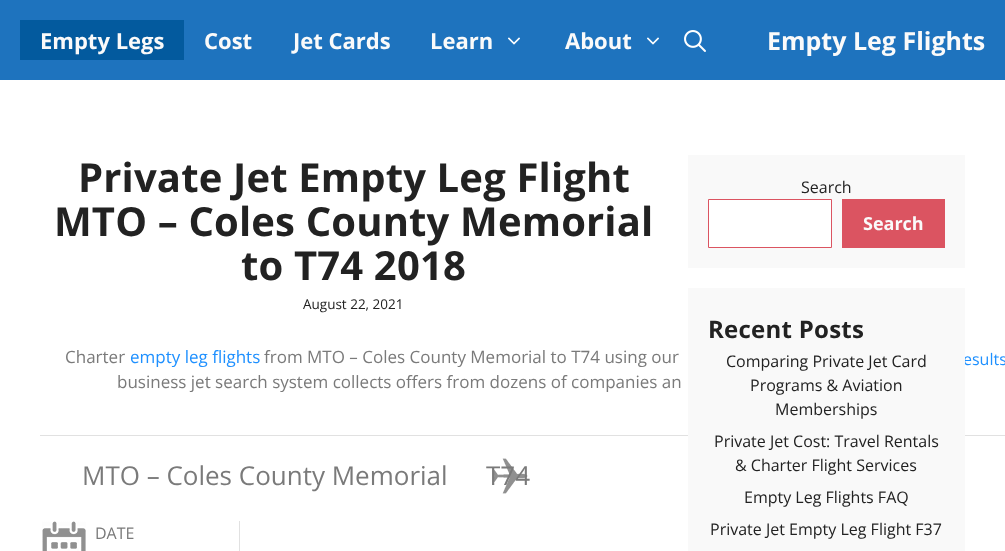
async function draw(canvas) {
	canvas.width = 1005;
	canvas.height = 551;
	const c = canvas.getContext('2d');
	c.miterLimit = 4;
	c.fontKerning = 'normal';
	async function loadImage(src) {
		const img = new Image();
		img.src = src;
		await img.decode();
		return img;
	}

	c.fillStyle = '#fff';
	c.fillRect(0, 0, 1005, 551);
	c.fillStyle = '#1e73be';
	c.fillRect(0, 0, 1005, 80);
	c.fillStyle = '#035a9e';
	c.fillRect(20, 20, 164, 40);
	c.font = 'bold 22px Open Sans';
	c.fillStyle = '#fafafa';
	for (const [text, x, y] of [
		['Empty Legs', 40, 49],
		['Cost', 204, 49],
		['Jet Cards', 293, 49],
		['Learn', 430, 49],
	]) {
		c.fillText(text, x, y);
	}
	c.drawImage(await loadImage('img1.png'), 508, 37, 12, 8);
	c.fillText('About', 565, 49);
	c.drawImage(await loadImage('img1.png'), 647, 37, 12, 8);
	c.drawImage(await loadImage('img2.png'), 684, 30, 22, 22);
	c.font = 'bold 25px Open Sans';
	c.fillText('Empty Leg Flights', 767, 50);
	c.letterSpacing = '0.15px';
	c.font = 'bold 40px Open Sans';
	c.fillStyle = '#222';
	for (const [text, x, y] of [
		['Private Jet Empty Leg Flight', 78, 192],
		['MTO – Coles County Memorial', 54, 236],
		['to T74 2018', 241, 280],
	]) {
		c.fillText(text, x, y);
	}
	c.letterSpacing = '0px';
	c.font = '13.5px Open Sans';
	c.fillText('August 22, 2021', 303, 309);
	c.font = '17px Open Sans';
	c.fillStyle = '#7a7a7a';
	c.fillText('Charter', 65, 363);
	c.fillStyle = '#1e90ff';
	c.fillText('empty leg flights', 130, 363);
	c.fillStyle = '#7a7a7a';
	c.fillText('from MTO – Coles County Memorial to T74 using our', 264, 363);
	c.fillText('business jet search system collects offers from dozens of companies an', 117, 388);
	c.font = '16px Open Sans';
	c.fillStyle = '#1e90ff';
	c.fillText('esults', 963, 365);
	c.fillStyle = '#e1e1e1';
	c.fillRect(40, 435, 965, 1);
	c.font = '26px Open Sans';
	c.fillStyle = '#7a7a7a';
	c.fillText('MTO – Coles County Memorial', 82, 485);
	c.drawImage(await loadImage('img3.png'), 492, 458, 36, 36);
	c.fillText('T74', 486, 485);
	c.fillStyle = '#e1e1e1';
	c.fillRect(239, 521, 1, 30);
	c.drawImage(await loadImage('img4.png'), 42, 521, 44, 30);
	c.font = '16px Open Sans';
	c.fillStyle = '#7a7a7a';
	c.fillText('DATE', 95, 539);
	c.fillStyle = '#f9f9f9';
	c.fillRect(688, 155, 277, 113);
	c.fillStyle = '#222';
	c.fillText('Search', 801, 193);
	c.fillStyle = '#fff';
	c.beginPath();
	c.rect(708.5, 199.5, 123, 48);
	c.fill();
	c.strokeStyle = '#db5461';
	c.stroke();
	c.fillStyle = '#db5461';
	c.fillRect(842, 199, 103, 49);
	c.font = 'bold 18px Open Sans';
	c.fillStyle = '#fafafa';
	c.fillText('Search', 863, 230);
	c.fillStyle = '#f9f9f9';
	c.fillRect(688, 288, 277, 263);
	c.letterSpacing = '0.25px';
	c.font = 'bold 24px Open Sans';
	c.fillStyle = '#222';
	c.fillText('Recent Posts', 708, 338);
	c.letterSpacing = '0px';
	c.font = '16px Open Sans';
	for (const [text, x, y] of [
		['Comparing Private Jet Card', 726, 367],
		['Programs & Aviation', 750, 391],
		['Memberships', 775, 415],
		['Private Jet Cost: Travel Rentals', 714, 447],
		['& Charter Flight Services', 735, 471],
		['Empty Leg Flights FAQ', 744, 503],
		['Private Jet Empty Leg Flight F37', 710, 535],
	]) {
		c.fillText(text, x, y);
	}
}

draw(document.querySelector('canvas'));
